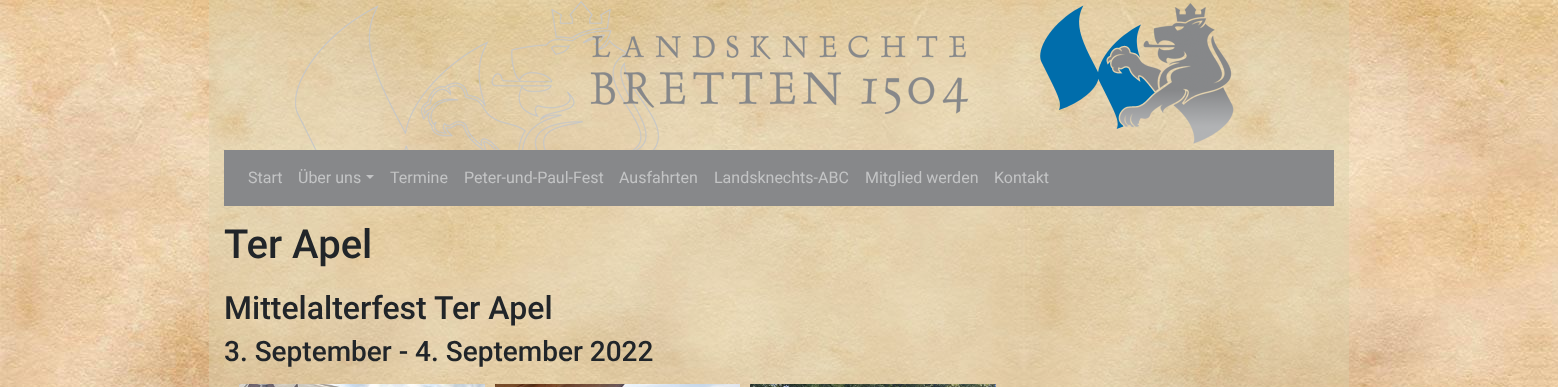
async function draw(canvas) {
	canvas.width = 1558;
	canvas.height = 387;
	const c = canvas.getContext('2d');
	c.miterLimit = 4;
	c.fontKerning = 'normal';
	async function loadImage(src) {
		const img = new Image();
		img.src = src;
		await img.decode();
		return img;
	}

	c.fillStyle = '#fff';
	c.fillRect(0, 0, 1558, 387);
	c.drawImage(await loadImage('img1.png'), 0, 0, 1558, 387);
	c.fillStyle = '#dad1aa66';
	c.fillRect(209, 0, 1140, 387);
	c.drawImage(await loadImage('img2.png'), 295, 1, 939, 149);
	c.fillStyle = '#87888a';
	c.fillRect(224, 150, 1110, 56);
	c.font = '16px Roboto';
	c.fillStyle = '#c3c4c5';
	c.fillText('Start', 248, 183);
	c.fillText('Über uns', 298, 183);
	c.beginPath();
	c.moveTo(366, 175);
	c.lineTo(374, 175);
	c.lineTo(370, 179);
	c.closePath();
	c.fill();
	for (const [text, x, y] of [
		['Termine', 390, 183],
		['Peter-und-Paul-Fest', 464, 183],
		['Ausfahrten', 619, 183],
		['Landsknechts-ABC', 714, 183],
		['Mitglied werden', 865, 183],
		['Kontakt', 994, 183],
	]) {
		c.fillText(text, x, y);
	}
	c.font = '500 40px Roboto';
	c.fillStyle = '#212529';
	c.fillText('Ter Apel', 224, 258);
	c.font = '500 32px Roboto';
	c.fillText('Mittelalterfest Ter Apel', 224, 319);
	c.font = '500 28px Roboto';
	c.fillText('3. September - 4. September 2022', 224, 361);
	c.drawImage(await loadImage('img3.png'), 239, 384, 246, 3);
	c.drawImage(await loadImage('img4.png'), 495, 384, 245, 3);
	c.drawImage(await loadImage('img5.png'), 750, 384, 246, 3);
}

draw(document.querySelector('canvas'));
